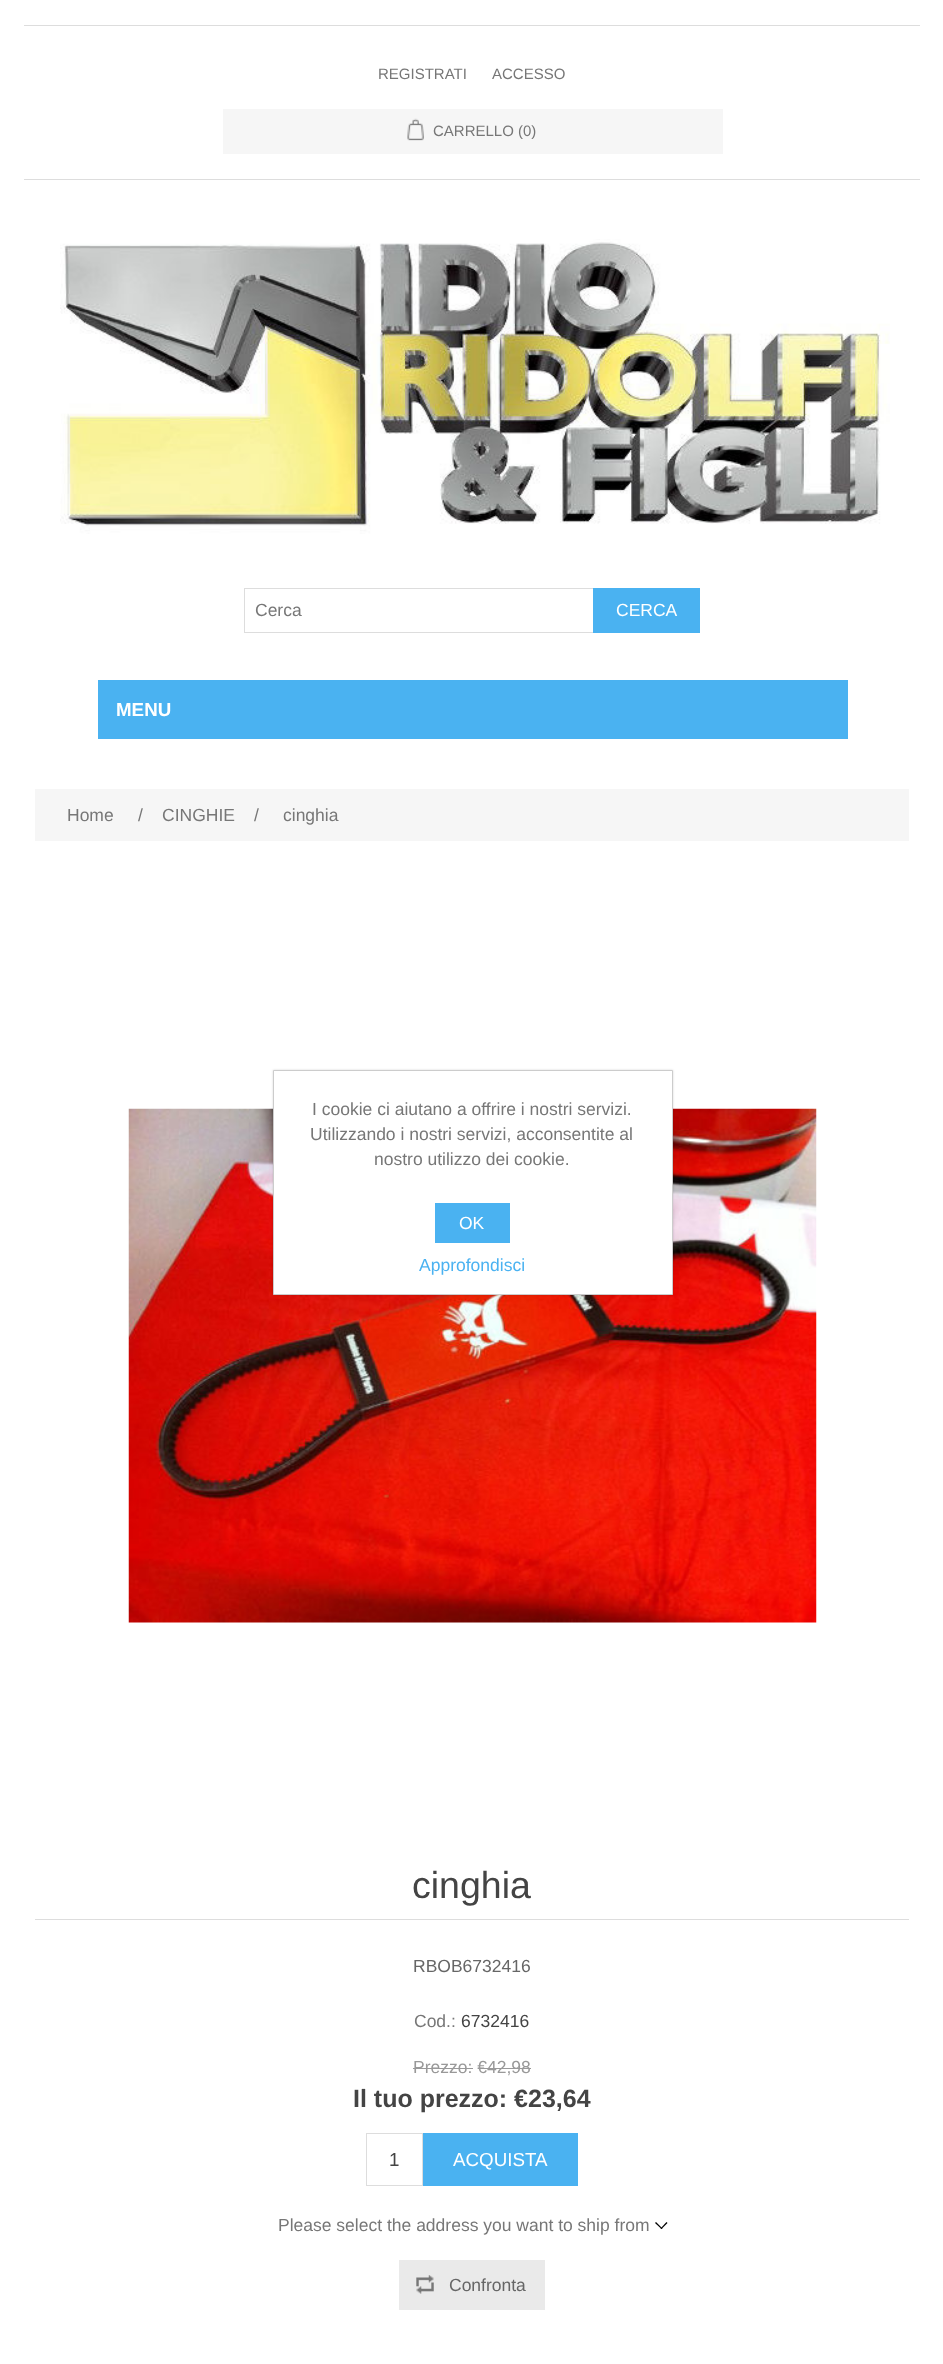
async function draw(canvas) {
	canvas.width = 943;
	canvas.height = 2364;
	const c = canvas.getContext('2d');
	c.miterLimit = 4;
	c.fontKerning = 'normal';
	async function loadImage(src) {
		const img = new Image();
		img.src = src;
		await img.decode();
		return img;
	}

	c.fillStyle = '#fff';
	c.fillRect(0, 0, 943, 2364);
	c.fillStyle = '#ddd';
	c.fillRect(24, 179, 896, 1);
	c.fillRect(24, 25, 896, 1);
	c.font = '15px Liberation Sans';
	c.fillStyle = '#777';
	c.fillText('REGISTRATI', 378, 79);
	c.fillText('ACCESSO', 492, 79);
	c.fillStyle = '#f6f6f6';
	c.fillRect(223, 109, 500, 45);
	c.drawImage(await loadImage('img1.png'), 407, 118, 17, 23);
	c.fillStyle = '#777';
	c.fillText('CARRELLO (0)', 433, 136);
	c.drawImage(await loadImage('img2.png'), 60, 239, 830, 295);
	c.strokeStyle = '#ddd';
	c.strokeRect(244.5, 588.5, 349, 44);
	c.font = '17.5px Liberation Sans';
	c.fillText('Cerca', 255, 616);
	c.fillStyle = '#4ab2f1';
	c.fillRect(593, 588, 107, 45);
	c.fillStyle = '#fff';
	c.fillText('CERCA', 616, 616);
	c.fillStyle = '#4ab2f1';
	c.fillRect(98, 680, 750, 59);
	c.font = 'bold 18.75px Liberation Sans';
	c.fillStyle = '#fff';
	c.fillText('MENU', 116, 716);
	c.fillStyle = '#f6f6f6';
	c.fillRect(35, 789, 874, 52);
	c.font = '17.5px Liberation Sans';
	c.fillStyle = '#777';
	for (const [text, x, y] of [
		['Home', 67, 821],
		['/', 138, 821],
		['CINGHIE', 162, 821],
		['/', 254, 821],
		['cinghia', 283, 821],
	]) {
		c.fillText(text, x, y);
	}
	c.drawImage(await loadImage('img3.png'), 128, 1108, 689, 515);
	c.fillStyle = '#ddd';
	c.fillRect(35, 1919, 874, 1);
	c.font = '37.5px Liberation Sans';
	c.fillStyle = '#444';
	c.fillText('cinghia', 412, 1898);
	c.font = '17.5px Liberation Sans';
	c.fillStyle = '#666';
	c.fillText('RBOB6732416', 413, 1972);
	c.fillStyle = '#777';
	c.fillText('Cod.:', 414, 2027);
	c.fillStyle = '#444';
	c.fillText('6732416', 461, 2027);
	c.fillStyle = '#999';
	c.fillText('Prezzo: €42,98', 413, 2073);
	c.fillRect(413, 2068, 60, 1);
	c.fillRect(478, 2068, 53, 1);
	c.font = 'bold 25px Liberation Sans';
	c.fillStyle = '#444';
	c.fillText('Il tuo prezzo: €23,64', 353, 2107);
	c.strokeRect(366.5, 2133.5, 56, 52);
	c.font = '18.75px Liberation Sans';
	c.fillText('1', 389, 2166);
	c.fillStyle = '#4ab2f1';
	c.fillRect(423, 2133, 155, 53);
	c.fillStyle = '#fff';
	c.fillText('ACQUISTA', 453, 2166);
	c.font = '17.5px Liberation Sans';
	c.fillStyle = '#777';
	c.fillText('Please select the address you want to ship from', 278, 2231);
	c.fillStyle = '#000';
	c.beginPath();
	c.moveTo(666.5, 2222);
	c.lineTo(667.5, 2223);
	c.lineTo(661.5, 2229);
	c.lineTo(660.5, 2228.5);
	c.closePath();
	c.fill();
	c.beginPath();
	c.moveTo(656, 2222);
	c.lineTo(662.5, 2228.5);
	c.lineTo(661.5, 2229);
	c.lineTo(655, 2223);
	c.closePath();
	c.fill();
	c.fillStyle = '#eaeaea';
	c.fillRect(399, 2260, 146, 50);
	c.drawImage(await loadImage('img4.png'), 416, 2275, 18, 19);
	c.fillStyle = '#666';
	c.fillText('Confronta', 449, 2291);
	c.fillStyle = '#00000026';
	c.filter = 'blur(1px)';
	c.beginPath();
	c.rect(273, 1070, 400, 225);
	c.fill();
	c.filter = 'none';
	c.fillStyle = '#fff';
	c.beginPath();
	c.rect(273.5, 1070.5, 399, 224);
	c.fill();
	c.strokeStyle = '#ccc';
	c.stroke();
	c.fillStyle = '#777';
	for (const [text, x, y] of [
		['I cookie ci aiutano a offrire i nostri servizi.', 312, 1115],
		['Utilizzando i nostri servizi, acconsentite al', 310, 1140],
		['nostro utilizzo dei cookie.', 374, 1165],
	]) {
		c.fillText(text, x, y);
	}
	c.fillStyle = '#4ab2f1';
	c.fillRect(435, 1203, 75, 40);
	c.fillStyle = '#fff';
	c.fillText('OK', 459, 1229);
	c.fillStyle = '#4ab2f1';
	c.fillText('Approfondisci', 419, 1271);
}

draw(document.querySelector('canvas'));
